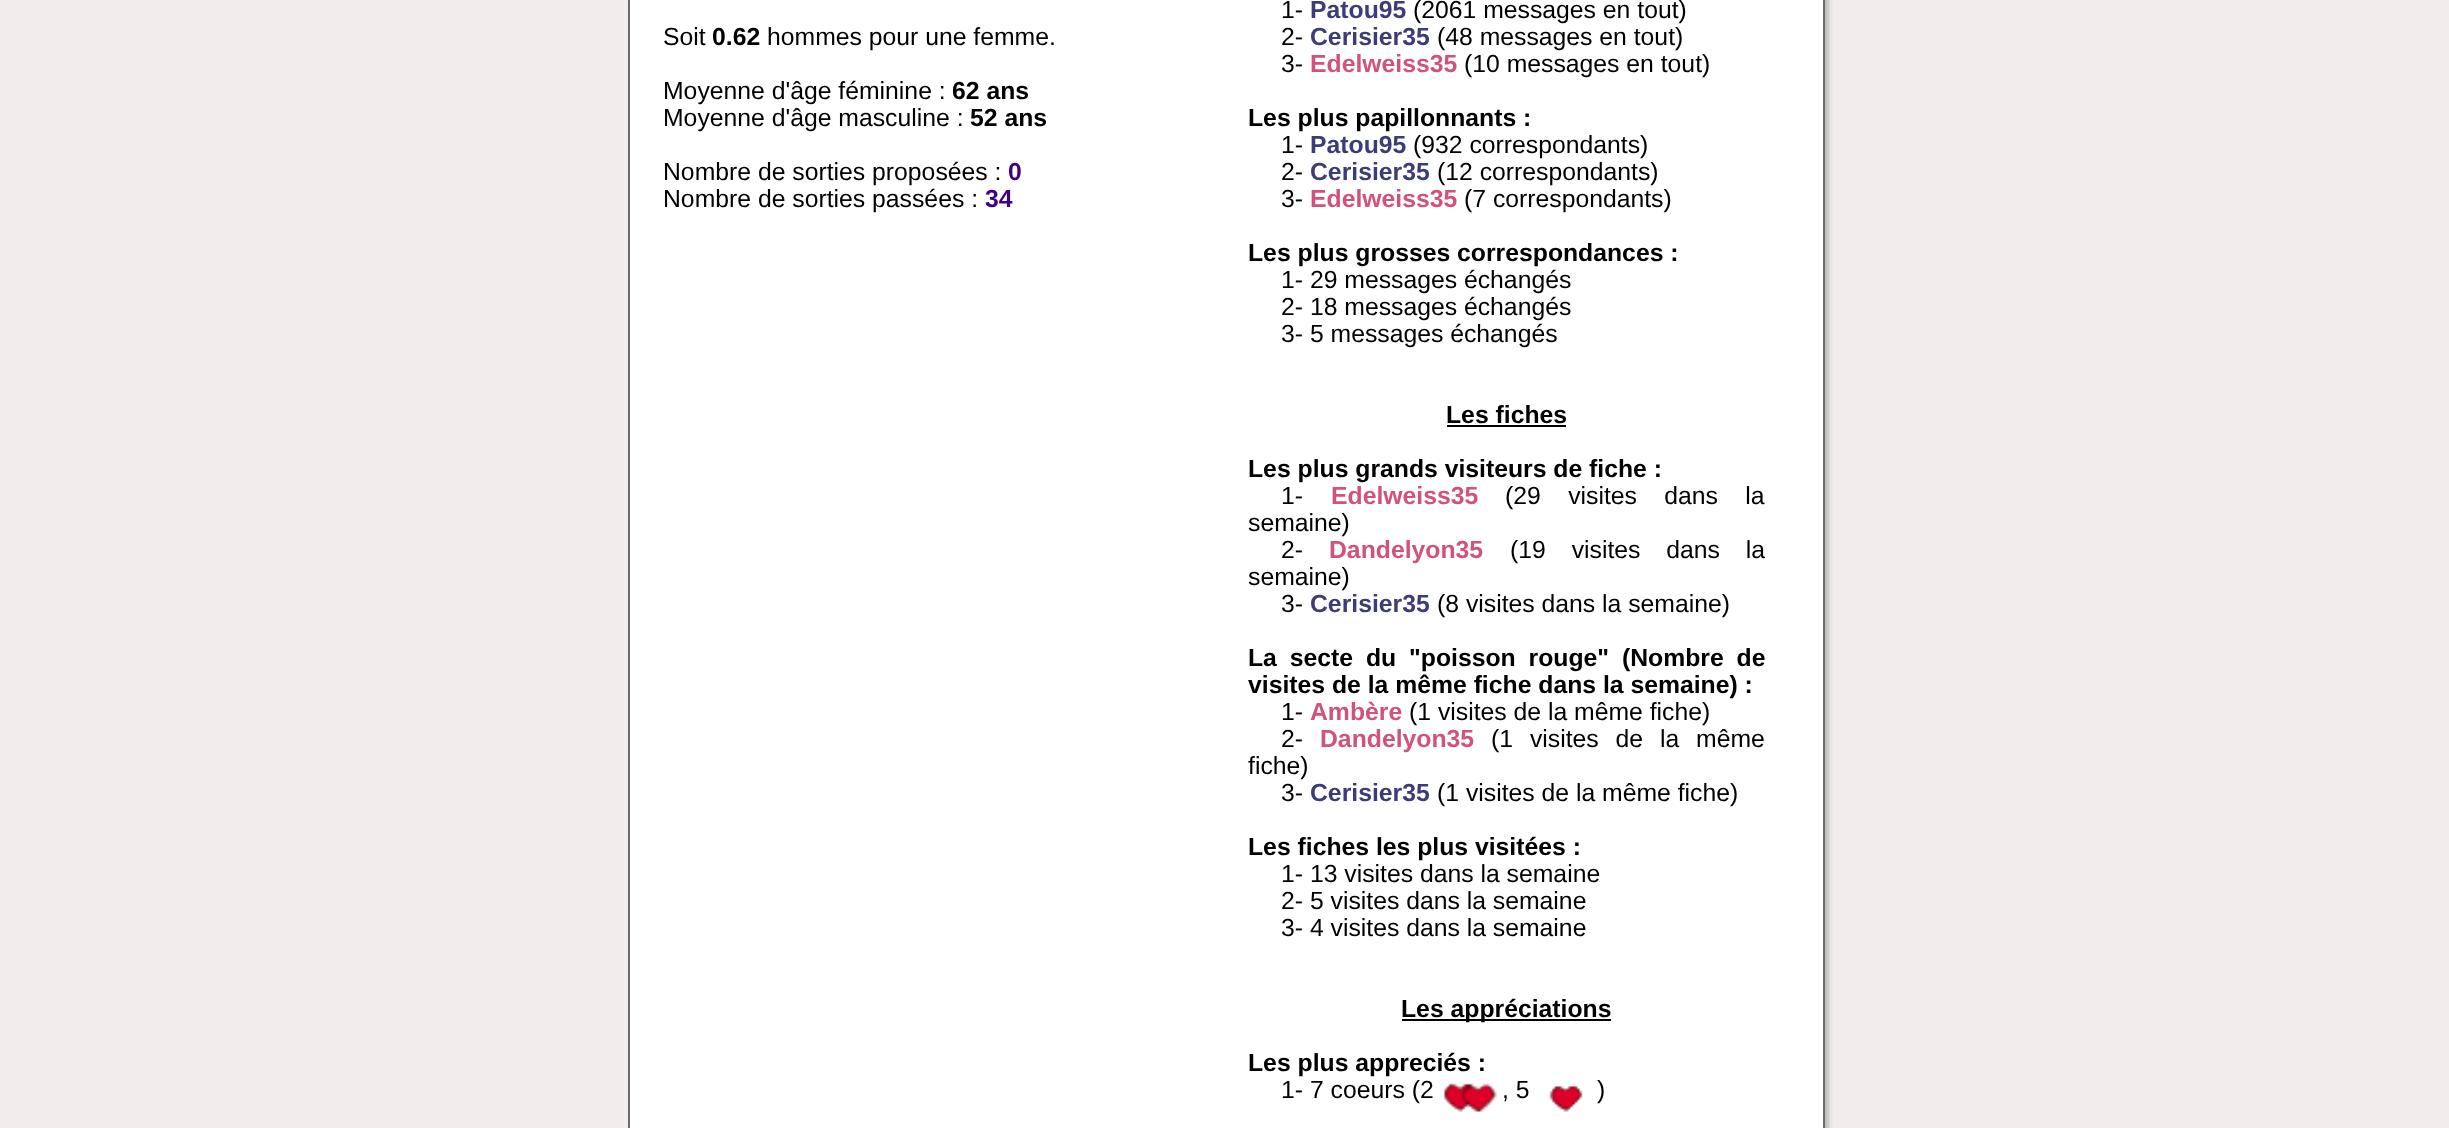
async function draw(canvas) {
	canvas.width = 2449;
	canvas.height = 1128;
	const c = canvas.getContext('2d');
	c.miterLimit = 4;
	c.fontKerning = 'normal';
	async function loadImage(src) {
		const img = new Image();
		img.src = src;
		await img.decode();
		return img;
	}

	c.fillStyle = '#f1eded';
	c.fillRect(0, 0, 2449, 1128);
	c.fillStyle = '#bbb';
	c.filter = 'blur(2px)';
	c.beginPath();
	c.roundRect(632, -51, 1197, 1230, 45);
	c.fill();
	c.filter = 'none';
	c.fillStyle = '#fff';
	c.beginPath();
	c.rect(629, -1, 1195, 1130);
	c.fill();
	c.strokeStyle = '#6c6c6c';
	c.lineWidth = 2;
	c.stroke();
	c.font = '24.75px Liberation Sans';
	c.fillStyle = '#000';
	c.fillText('Soit', 663, 45);
	c.font = 'bold 24.75px Liberation Sans';
	c.fillText('0.62', 712, 45);
	c.font = '24.75px Liberation Sans';
	c.fillText('hommes pour une femme.', 767, 45);
	c.fillText('Moyenne d\'âge féminine :', 663, 99);
	c.font = 'bold 24.75px Liberation Sans';
	c.fillText('62 ans', 952, 99);
	c.font = '24.75px Liberation Sans';
	c.fillText('Moyenne d\'âge masculine :', 663, 126);
	c.font = 'bold 24.75px Liberation Sans';
	c.fillText('52 ans', 970, 126);
	c.font = '24.75px Liberation Sans';
	c.fillText('Nombre de sorties proposées :', 663, 180);
	c.font = 'bold 24.75px Liberation Sans';
	c.fillStyle = '#400080';
	c.fillText('0', 1008, 180);
	c.font = '24.75px Liberation Sans';
	c.fillStyle = '#000';
	c.fillText('Nombre de sorties passées :', 663, 207);
	c.font = 'bold 24.75px Liberation Sans';
	c.fillStyle = '#400080';
	c.fillText('34', 985, 207);
	c.font = '24.75px Liberation Sans';
	c.fillStyle = '#000';
	c.fillText('1-', 1281, 18);
	c.font = 'bold 24.75px Liberation Sans';
	c.fillStyle = '#3c3c77';
	c.fillText('Patou95', 1310, 18);
	c.font = '24.75px Liberation Sans';
	c.fillStyle = '#000';
	c.fillText('(2061 messages en tout)', 1413, 18);
	c.fillText('2-', 1281, 45);
	c.font = 'bold 24.75px Liberation Sans';
	c.fillStyle = '#3c3c77';
	c.fillText('Cerisier35', 1310, 45);
	c.font = '24.75px Liberation Sans';
	c.fillStyle = '#000';
	c.fillText('(48 messages en tout)', 1437, 45);
	c.fillText('3-', 1281, 72);
	c.font = 'bold 24.75px Liberation Sans';
	c.fillStyle = '#d2517e';
	c.fillText('Edelweiss35', 1310, 72);
	c.font = '24.75px Liberation Sans';
	c.fillStyle = '#000';
	c.fillText('(10 messages en tout)', 1464, 72);
	c.font = 'bold 24.75px Liberation Sans';
	c.fillText('Les plus papillonnants :', 1248, 126);
	c.font = '24.75px Liberation Sans';
	c.fillText('1-', 1281, 153);
	c.font = 'bold 24.75px Liberation Sans';
	c.fillStyle = '#3c3c77';
	c.fillText('Patou95', 1310, 153);
	c.font = '24.75px Liberation Sans';
	c.fillStyle = '#000';
	c.fillText('(932 correspondants)', 1413, 153);
	c.fillText('2-', 1281, 180);
	c.font = 'bold 24.75px Liberation Sans';
	c.fillStyle = '#3c3c77';
	c.fillText('Cerisier35', 1310, 180);
	c.font = '24.75px Liberation Sans';
	c.fillStyle = '#000';
	c.fillText('(12 correspondants)', 1437, 180);
	c.fillText('3-', 1281, 207);
	c.font = 'bold 24.75px Liberation Sans';
	c.fillStyle = '#d2517e';
	c.fillText('Edelweiss35', 1310, 207);
	c.font = '24.75px Liberation Sans';
	c.fillStyle = '#000';
	c.fillText('(7 correspondants)', 1464, 207);
	c.font = 'bold 24.75px Liberation Sans';
	c.fillText('Les plus grosses correspondances :', 1248, 261);
	c.font = '24.75px Liberation Sans';
	for (const [text, x, y] of [
		['1- 29 messages échangés', 1281, 288],
		['2- 18 messages échangés', 1281, 315],
		['3- 5 messages échangés', 1281, 342],
	]) {
		c.fillText(text, x, y);
	}
	c.font = 'bold 24.75px Liberation Sans';
	c.fillText('Les fiches', 1446, 423);
	c.fillRect(1447, 425, 119, 2);
	c.fillText('Les plus grands visiteurs de fiche :', 1248, 477);
	c.font = '24.75px Liberation Sans';
	c.fillText('1-', 1281, 504);
	c.font = 'bold 24.75px Liberation Sans';
	c.fillStyle = '#d2517e';
	c.fillText('Edelweiss35', 1331, 504);
	c.wordSpacing = '20.5px';
	c.font = '24.75px Liberation Sans';
	c.fillStyle = '#000';
	c.fillText('(29 visites dans la', 1505, 504);
	c.wordSpacing = '0px';
	c.fillText('semaine)', 1248, 531);
	c.fillText('2-', 1281, 558);
	c.font = 'bold 24.75px Liberation Sans';
	c.fillStyle = '#d2517e';
	c.fillText('Dandelyon35', 1329, 558);
	c.wordSpacing = '19px';
	c.font = '24.75px Liberation Sans';
	c.fillStyle = '#000';
	c.fillText('(19 visites dans la', 1510, 558);
	c.wordSpacing = '0px';
	c.fillText('semaine)', 1248, 585);
	c.fillText('3-', 1281, 612);
	c.font = 'bold 24.75px Liberation Sans';
	c.fillStyle = '#3c3c77';
	c.fillText('Cerisier35', 1310, 612);
	c.font = '24.75px Liberation Sans';
	c.fillStyle = '#000';
	c.fillText('(8 visites dans la semaine)', 1437, 612);
	c.wordSpacing = '6px';
	c.font = 'bold 24.75px Liberation Sans';
	c.fillText('La secte du "poisson rouge" (Nombre de', 1248, 666);
	c.wordSpacing = '0px';
	c.fillText('visites de la même fiche dans la semaine) :', 1248, 693);
	c.font = '24.75px Liberation Sans';
	c.fillText('1-', 1281, 720);
	c.font = 'bold 24.75px Liberation Sans';
	c.fillStyle = '#d2517e';
	c.fillText('Ambère', 1310, 720);
	c.font = '24.75px Liberation Sans';
	c.fillStyle = '#000';
	c.fillText('(1 visites de la même fiche)', 1409, 720);
	c.fillText('2-', 1281, 747);
	c.font = 'bold 24.75px Liberation Sans';
	c.fillStyle = '#d2517e';
	c.fillText('Dandelyon35', 1320, 747);
	c.wordSpacing = '10px';
	c.font = '24.75px Liberation Sans';
	c.fillStyle = '#000';
	c.fillText('(1 visites de la même', 1491, 747);
	c.wordSpacing = '0px';
	c.fillText('fiche)', 1248, 774);
	c.fillText('3-', 1281, 801);
	c.font = 'bold 24.75px Liberation Sans';
	c.fillStyle = '#3c3c77';
	c.fillText('Cerisier35', 1310, 801);
	c.font = '24.75px Liberation Sans';
	c.fillStyle = '#000';
	c.fillText('(1 visites de la même fiche)', 1437, 801);
	c.font = 'bold 24.75px Liberation Sans';
	c.fillText('Les fiches les plus visitées :', 1248, 855);
	c.font = '24.75px Liberation Sans';
	for (const [text, x, y] of [
		['1- 13 visites dans la semaine', 1281, 882],
		['2- 5 visites dans la semaine', 1281, 909],
		['3- 4 visites dans la semaine', 1281, 936],
	]) {
		c.fillText(text, x, y);
	}
	c.fillRect(1402, 1019, 209, 2);
	c.font = 'bold 24.75px Liberation Sans';
	c.fillText('Les appréciations', 1401, 1017);
	c.fillText('Les plus appreciés :', 1248, 1071);
	c.font = '24.75px Liberation Sans';
	c.fillText('1- 7 coeurs (2', 1281, 1098);
	c.drawImage(await loadImage('img1.png'), 1444, 1083, 53, 29);
	c.fillText(', 5', 1502, 1098);
	c.drawImage(await loadImage('img2.png'), 1549, 1086, 34, 26);
	c.fillText(')', 1597, 1098);
}

draw(document.querySelector('canvas'));
